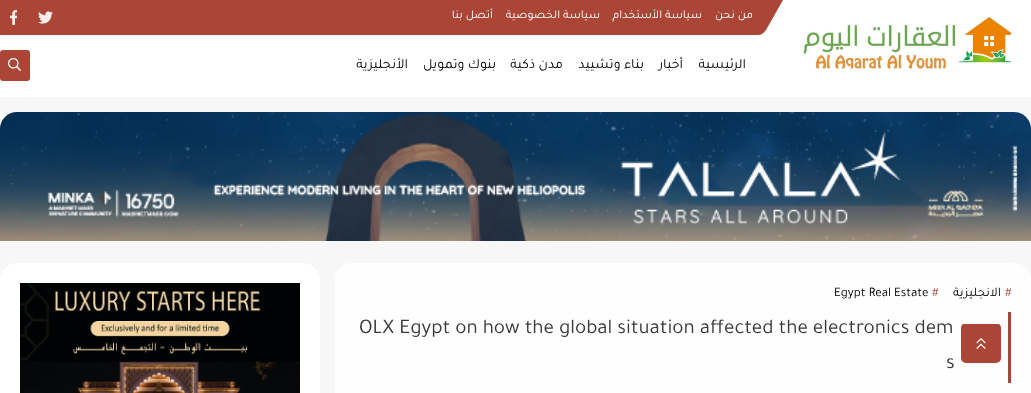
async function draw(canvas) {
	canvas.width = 1031;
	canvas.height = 393;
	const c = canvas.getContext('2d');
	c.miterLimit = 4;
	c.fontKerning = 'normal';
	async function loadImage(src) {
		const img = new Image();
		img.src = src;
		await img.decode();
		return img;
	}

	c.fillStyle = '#f7f7f7';
	c.fillRect(0, 0, 1031, 393);
	c.fillStyle = '#fff';
	c.fillRect(0, 0, 1031, 97);
	c.fillStyle = '#ab4535';
	c.beginPath();
	c.moveTo(-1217, 0);
	c.lineTo(783, 0);
	c.lineTo(766, 30);
	c.bezierCurveTo(764, 33, 761, 35, 758, 35);
	c.lineTo(-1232, 35);
	c.bezierCurveTo(-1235, 35, -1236, 33, -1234, 30);
	c.closePath();
	c.fill();
	c.direction = 'rtl';
	c.font = '12px Tajawal';
	c.fillStyle = '#fff';
	for (const [text, x, y] of [
		['من نحن', 753, 18],
		['سياسة الأستخدام', 702, 18],
		['سياسة الخصوصية', 600, 18],
		['أتصل بنا', 493, 18],
	]) {
		c.fillText(text, x, y);
	}
	c.drawImage(await loadImage('img1.png'), 38, 11, 15, 13);
	c.drawImage(await loadImage('img2.png'), 10, 10, 7, 15);
	c.drawImage(await loadImage('img3.png'), 803, 16, 208, 54);
	c.font = '14px Tajawal';
	c.fillStyle = '#000';
	for (const [text, x, y] of [
		['الرئيسية', 746, 68],
		['أخبار', 683, 68],
		['بناء وتشييد', 644, 68],
		['مدن ذكية', 563, 68],
		['بنوك وتمويل', 496, 68],
		['الأنجليزية', 408, 68],
	]) {
		c.fillText(text, x, y);
	}
	c.fillStyle = '#ab4535';
	c.beginPath();
	c.roundRect(0, 50, 30, 31, 3);
	c.fill();
	c.drawImage(await loadImage('img4.png'), 8, 58, 13, 13);
	c.drawImage(await loadImage('img5.png'), 0, 112, 1031, 129);
	c.fillStyle = '#fefefe';
	c.beginPath();
	c.roundRect(335, 263, 696, 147, 17);
	c.fill();
	c.direction = 'ltr';
	c.font = '13px Tajawal';
	c.fillStyle = '#ab4535';
	c.fillText('#', 1005, 296);
	c.direction = 'rtl';
	c.fillStyle = '#000';
	c.fillText('الانجليزية', 1001, 296);
	c.direction = 'ltr';
	c.fillStyle = '#ab4535';
	c.fillText('#', 932, 296);
	c.fillStyle = '#000';
	c.fillText('Egypt Real Estate', 834, 296);
	c.fillStyle = '#ab4535';
	c.fillRect(1008, 312, 3, 71);
	c.font = '21px Tajawal';
	c.fillStyle = '#393939';
	c.fillText('OLX Egypt on how the global situation affected the electronics dem', 359, 333);
	c.fillText('s', 946, 368);
	c.fillStyle = '#fff';
	c.beginPath();
	c.roundRect(0, 263, 320, 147, 17);
	c.fill();
	c.drawImage(await loadImage('img6.png'), 20, 283, 280, 110);
	c.fillStyle = '#ab4535';
	c.beginPath();
	c.roundRect(961, 323, 40, 40, 5);
	c.fill();
	c.fillStyle = '#fff';
	c.fillRect(961, 323, 40, 1);
	c.drawImage(await loadImage('img7.png'), 976, 338, 10, 11);
}

draw(document.querySelector('canvas'));
